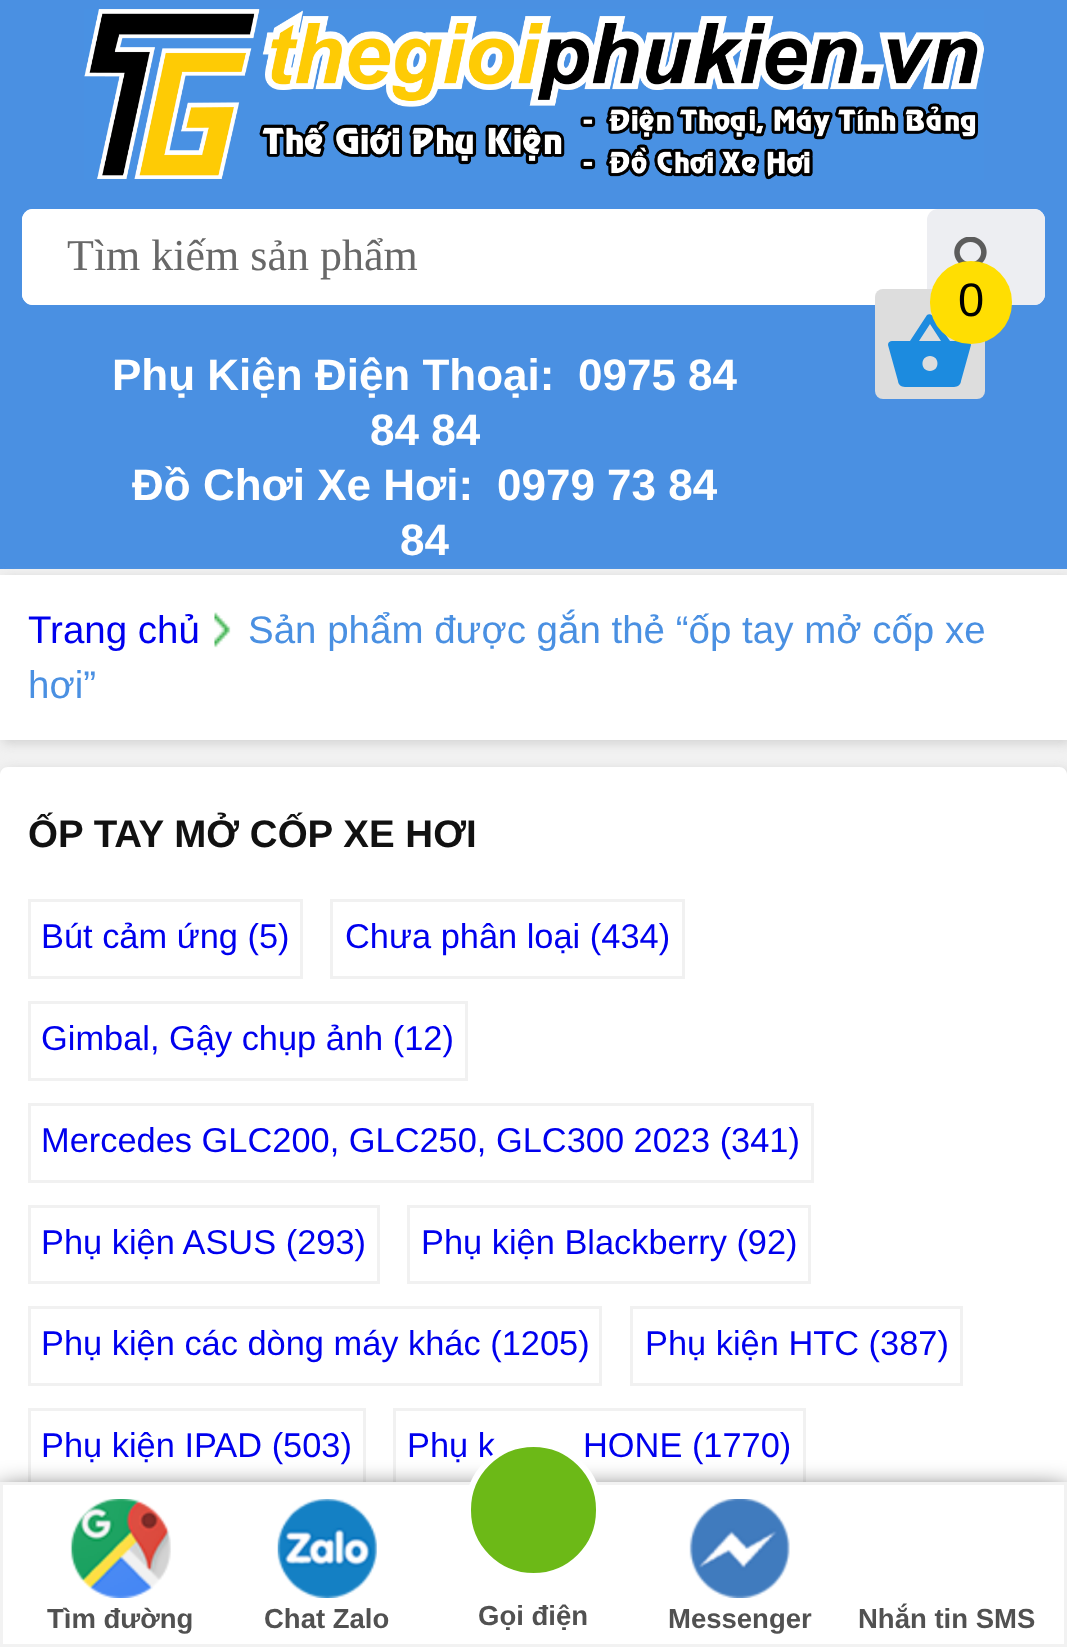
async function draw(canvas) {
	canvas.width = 1067;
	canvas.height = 1647;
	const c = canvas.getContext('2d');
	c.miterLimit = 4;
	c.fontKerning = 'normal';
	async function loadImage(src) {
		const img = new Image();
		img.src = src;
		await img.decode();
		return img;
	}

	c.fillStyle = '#f1f1f1';
	c.fillRect(0, 0, 1067, 1647);
	c.fillStyle = '#4a90e2';
	c.fillRect(0, 0, 1067, 569);
	c.drawImage(await loadImage('img1.png'), 84, 9, 900, 171);
	c.fillStyle = '#fff';
	c.beginPath();
	c.roundRect(22, 209, 1023, 96, 11);
	c.fill();
	c.beginPath();
	c.roundRect(22, 209, 858, 96, 11);
	c.fill();
	c.font = '44px Liberation Serif';
	c.fillStyle = '#686868';
	c.fillText('Tìm kiếm sản phẩm', 67, 270);
	c.fillStyle = '#edeef2';
	c.beginPath();
	c.roundRect(927, 209, 118, 96, 11);
	c.fill();
	c.drawImage(await loadImage('img2.png'), 954, 237, 33, 27);
	c.font = 'bold 44px Liberation Sans';
	c.fillStyle = '#fff';
	for (const [text, x, y] of [
		['Phụ Kiện Điện Thoại:', 112, 390],
		['0975 84', 578, 390],
		['84 84', 370, 445],
		['Đồ Chơi Xe Hơi:', 132, 500],
		['0979 73 84', 497, 500],
		['84', 400, 555],
	]) {
		c.fillText(text, x, y);
	}
	c.fillStyle = '#ddd';
	c.beginPath();
	c.roundRect(875, 289, 110, 110, 8);
	c.fill();
	c.fillStyle = '#1c8bdf';
	c.beginPath();
	c.moveTo(950, 341);
	c.lineTo(938, 324);
	c.bezierCurveTo(937, 322, 932, 311, 927, 315);
	c.lineTo(910, 341);
	c.lineTo(892, 341);
	c.bezierCurveTo(890, 341, 888, 342, 888, 345);
	c.lineTo(898, 381);
	c.bezierCurveTo(898, 384, 901, 387, 905, 387);
	c.lineTo(954, 387);
	c.bezierCurveTo(958, 387, 961, 384, 961, 381);
	c.lineTo(971, 345);
	c.bezierCurveTo(971, 342, 969, 341, 967, 341);
	c.closePath();
	c.moveTo(919, 341);
	c.lineTo(930, 324);
	c.lineTo(941, 341);
	c.closePath();
	c.moveTo(930, 371);
	c.bezierCurveTo(920, 371, 920, 356, 930, 356);
	c.bezierCurveTo(940, 356, 940, 371, 930, 371);
	c.closePath();
	c.fill();
	c.fillStyle = '#ffde02';
	c.beginPath();
	c.roundRect(930, 261, 82, 83, 41);
	c.fill();
	c.font = '47px Liberation Sans';
	c.fillStyle = '#000';
	c.fillText('0', 958, 316);
	c.fillStyle = '#d0d0d0';
	c.filter = 'blur(5.5px)';
	c.beginPath();
	c.rect(3, 578, 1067, 165);
	c.fill();
	c.filter = 'none';
	c.fillStyle = '#fff';
	c.fillRect(0, 575, 1067, 165);
	c.font = '38.5px Liberation Sans';
	c.fillStyle = '#00e';
	c.fillText('Trang chủ', 28, 643);
	c.drawImage(await loadImage('img3.png'), 214, 612, 17, 36);
	c.fillStyle = '#4a90e2';
	c.fillText('Sản phẩm được gắn thẻ “ốp tay mở cốp xe', 248, 643);
	c.fillText('hơi”', 28, 698);
	c.fillStyle = '#d0d0d0';
	c.filter = 'blur(5.5px)';
	c.beginPath();
	c.roundRect(3, 770, 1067, 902, 8);
	c.fill();
	c.filter = 'none';
	c.fillStyle = '#fff';
	c.beginPath();
	c.moveTo(8, 767);
	c.lineTo(1059, 767);
	c.bezierCurveTo(1063.5, 767, 1067, 770.5, 1067, 775);
	c.lineTo(1067, 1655);
	c.lineTo(0, 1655);
	c.lineTo(0, 775);
	c.bezierCurveTo(0, 770.5, 3.5, 767, 8, 767);
	c.closePath();
	c.fill();
	c.font = 'bold 38.5px Liberation Sans';
	c.fillStyle = '#111';
	c.fillText('ỐP TAY MỞ CỐP XE HƠI', 28, 847);
	c.strokeStyle = '#f1f1f1';
	c.lineWidth = 3;
	c.strokeRect(29.5, 900.5, 272, 77);
	c.font = '34.4px Liberation Sans';
	c.fillStyle = '#00e';
	c.fillText('Bút cảm ứng (5)', 41, 948);
	c.strokeRect(331.5, 900.5, 352, 77);
	c.fillText('Chưa phân loại (434)', 345, 948);
	c.strokeRect(29.5, 1002.5, 437, 77);
	c.fillText('Gimbal, Gậy chụp ảnh (12)', 41, 1050);
	c.strokeRect(29.5, 1104.5, 783, 77);
	c.fillText('Mercedes GLC200, GLC250, GLC300 2023 (341)', 41, 1152);
	c.strokeRect(29.5, 1206.5, 349, 76);
	c.fillText('Phụ kiện ASUS (293)', 41, 1254);
	c.strokeRect(408.5, 1206.5, 401, 76);
	c.fillText('Phụ kiện Blackberry (92)', 421, 1254);
	c.strokeRect(29.5, 1307.5, 571, 77);
	c.fillText('Phụ kiện các dòng máy khác (1205)', 41, 1355);
	c.strokeRect(631.5, 1307.5, 330, 77);
	c.fillText('Phụ kiện HTC (387)', 645, 1355);
	c.strokeRect(29.5, 1409.5, 335, 77);
	c.fillText('Phụ kiện IPAD (503)', 41, 1457);
	c.strokeRect(394.5, 1409.5, 410, 77);
	c.fillText('Phụ k', 407, 1457);
	c.fillText('HONE (1770)', 583, 1457);
	c.fillStyle = '#000';
	c.filter = 'blur(14px)';
	c.beginPath();
	c.rect(0, 1493, 1067, 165);
	c.fill();
	c.filter = 'none';
	c.fillStyle = '#fff';
	c.beginPath();
	c.rect(1.5, 1483.5, 1064, 162);
	c.fill();
	c.strokeStyle = '#f2f2f2';
	c.stroke();
	c.drawImage(await loadImage('img4.png'), 70, 1499, 101, 99);
	c.font = 'bold 27.5px Liberation Sans';
	c.fillStyle = '#515151';
	c.fillText('Tìm đường', 47, 1628);
	c.drawImage(await loadImage('img5.png'), 277, 1499, 100, 99);
	c.fillText('Chat Zalo', 264, 1628);
	c.fillStyle = '#6cb917';
	c.beginPath();
	c.roundRect(468, 1444, 131, 132, 65.5);
	c.fill();
	c.strokeStyle = '#fff';
	c.lineWidth = 6;
	c.stroke();
	c.fillStyle = '#515151';
	c.fillText('Gọi điện', 478, 1625);
	c.drawImage(await loadImage('img6.png'), 689, 1499, 101, 99);
	c.fillText('Messenger', 668, 1628);
	c.fillText('Nhắn tin SMS', 858, 1628);
}

draw(document.querySelector('canvas'));
